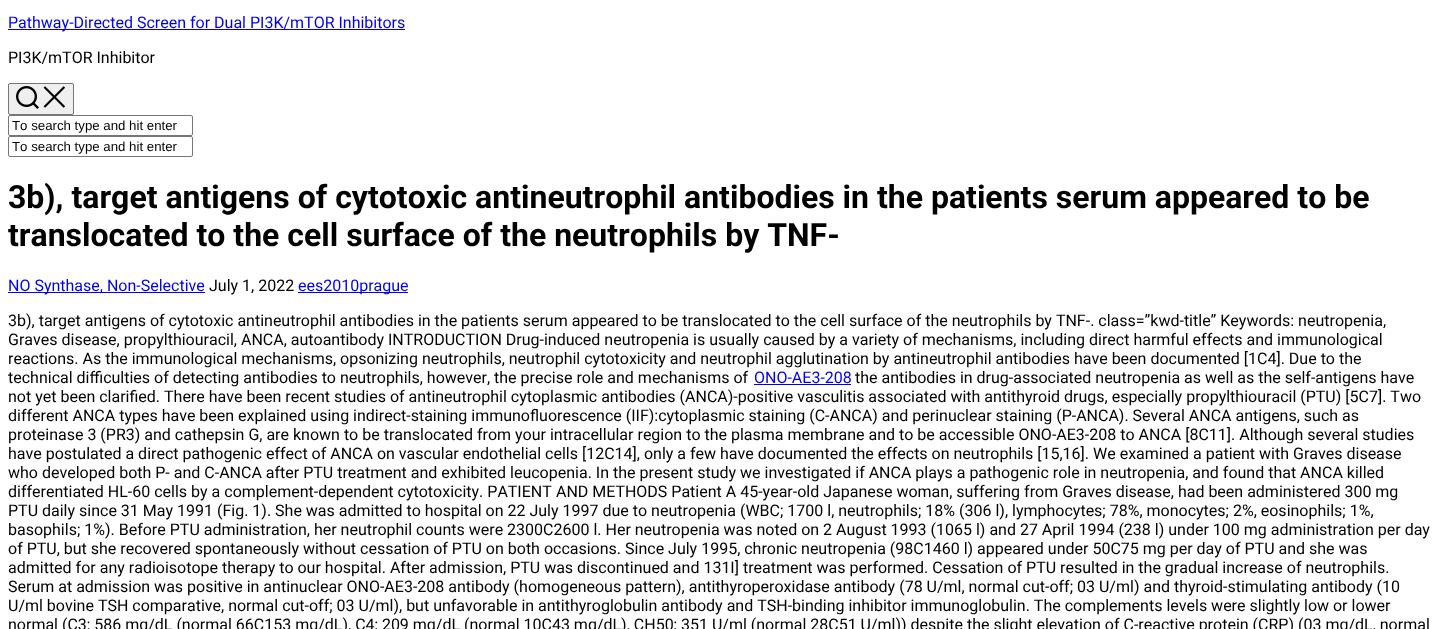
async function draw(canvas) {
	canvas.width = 1438;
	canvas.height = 629;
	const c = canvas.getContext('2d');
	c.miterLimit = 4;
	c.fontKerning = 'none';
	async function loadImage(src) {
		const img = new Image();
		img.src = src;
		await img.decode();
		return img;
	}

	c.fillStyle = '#fff';
	c.fillRect(0, 0, 1438, 629);
	c.fillStyle = '#00e';
	c.fillRect(8, 29, 397, 1);
	c.font = '16px Roboto';
	c.fillText('Pathway-Directed Screen for Dual PI3K/mTOR Inhibitors', 8, 28);
	c.fillStyle = '#000';
	c.fillText('PI3K/mTOR Inhibitor', 8, 63);
	c.fillStyle = '#efefef';
	c.beginPath();
	c.roundRect(8.5, 83.5, 65, 31, 1.5);
	c.fill();
	c.strokeStyle = '#767676';
	c.stroke();
	c.drawImage(await loadImage('img1.png'), 16, 86, 23, 23);
	c.drawImage(await loadImage('img2.png'), 43, 86, 22, 22);
	c.beginPath();
	c.roundRect(8.5, 115.5, 184, 20, 1.5);
	c.stroke();
	c.font = '13.25px Liberation Sans';
	c.fillStyle = '#000';
	c.fillText('To search type and hit enter', 12, 130);
	c.beginPath();
	c.roundRect(8.5, 136.5, 184, 20, 1.5);
	c.stroke();
	c.fillText('To search type and hit enter', 12, 151);
	c.font = 'bold 32px Roboto';
	c.fillText('3b), target antigens of cytotoxic antineutrophil antibodies in the patients serum appeared to be', 8, 208);
	c.fillText('translocated to the cell surface of the neutrophils by TNF-', 8, 246);
	c.fillStyle = '#00e';
	c.fillRect(8, 292, 197, 1);
	c.font = '16px Roboto';
	c.fillText('NO Synthase, Non-Selective', 8, 291);
	c.fillStyle = '#000';
	c.fillText('July 1, 2022', 209, 291);
	c.fillStyle = '#00e';
	c.fillRect(298, 292, 110, 1);
	c.fillText('ees2010prague', 298, 291);
	c.fillStyle = '#000';
	for (const [text, x, y] of [
		['3b), target antigens of cytotoxic antineutrophil antibodies in the patients serum appeared to be translocated to the cell surface of the neutrophils by TNF-. class=”kwd-title” Keywords: neutropenia,', 8, 326],
		['Graves disease, propylthiouracil, ANCA, autoantibody INTRODUCTION Drug-induced neutropenia is usually caused by a variety of mechanisms, including direct harmful effects and immunological', 8, 345],
		['reactions. As the immunological mechanisms, opsonizing neutrophils, neutrophil cytotoxicity and neutrophil agglutination by antineutrophil antibodies have been documented [1C4]. Due to the', 8, 364],
		['technical difficulties of detecting antibodies to neutrophils, however, the precise role and mechanisms of', 8, 383],
	]) {
		c.fillText(text, x, y);
	}
	c.fillStyle = '#00e';
	c.fillText('ONO-AE3-208', 754, 383);
	c.fillRect(754, 384, 97, 1);
	c.fillStyle = '#000';
	for (const [text, x, y] of [
		['the antibodies in drug-associated neutropenia as well as the self-antigens have', 855, 383],
		['not yet been clarified. There have been recent studies of antineutrophil cytoplasmic antibodies (ANCA)-positive vasculitis associated with antithyroid drugs, especially propylthiouracil (PTU) [5C7]. Two', 8, 402],
		['different ANCA types have been explained using indirect-staining immunofluorescence (IIF):cytoplasmic staining (C-ANCA) and perinuclear staining (P-ANCA). Several ANCA antigens, such as', 8, 421],
		['proteinase 3 (PR3) and cathepsin G, are known to be translocated from your intracellular region to the plasma membrane and to be accessible ONO-AE3-208 to ANCA [8C11]. Although several studies', 8, 440],
		['have postulated a direct pathogenic effect of ANCA on vascular endothelial cells [12C14], only a few have documented the effects on neutrophils [15,16]. We examined a patient with Graves disease', 8, 459],
		['who developed both P- and C-ANCA after PTU treatment and exhibited leucopenia. In the present study we investigated if ANCA plays a pathogenic role in neutropenia, and found that ANCA killed', 8, 478],
		['differentiated HL-60 cells by a complement-dependent cytotoxicity. PATIENT', 8, 497],
		['AND METHODS Patient A 45-year-old Japanese woman, suffering from Graves disease, had been administered 300 mg', 556, 497],
		['PTU daily since 31 May 1991 (Fig. 1). She was admitted to hospital on 22 July 1997 due to neutropenia (WBC; 1700 l, neutrophils; 18% (306 l), lymphocytes; 78%, monocytes; 2%, eosinophils; 1%,', 8, 516],
		['basophils; 1%). Before PTU administration, her neutrophil counts were 2300C2600 l. Her neutropenia was noted on 2 August 1993 (1065 l) and 27 April 1994 (238 l) under 100 mg administration per day', 8, 535],
		['of PTU, but she recovered spontaneously without cessation of PTU on both occasions. Since July 1995, chronic neutropenia (98C1460 l) appeared under 50C75 mg per day of PTU and she was', 8, 554],
		['admitted for any radioisotope therapy to our hospital. After admission, PTU was discontinued and 131I] treatment was performed. Cessation of PTU resulted in the gradual increase of neutrophils.', 8, 573],
		['Serum at admission was positive in antinuclear ONO-AE3-208 antibody (homogeneous pattern), antithyroperoxidase antibody (78 U/ml, normal cut-off; 03 U/ml) and thyroid-stimulating antibody (10', 8, 592],
		['U/ml bovine TSH comparative, normal cut-off; 03 U/ml), but unfavorable in antithyroglobulin antibody and TSH-binding inhibitor immunoglobulin. The complements levels were slightly low or lower', 8, 611],
		['normal (C3; 586 mg/dL (normal 66C153 mg/dL), C4; 209 mg/dL (normal 10C43 mg/dL), CH50; 351 U/ml (normal 28C51 U/ml)) despite the slight elevation of C-reactive protein (CRP) (03 mg/dL, normal', 8, 630],
	]) {
		c.fillText(text, x, y);
	}
}

draw(document.querySelector('canvas'));
